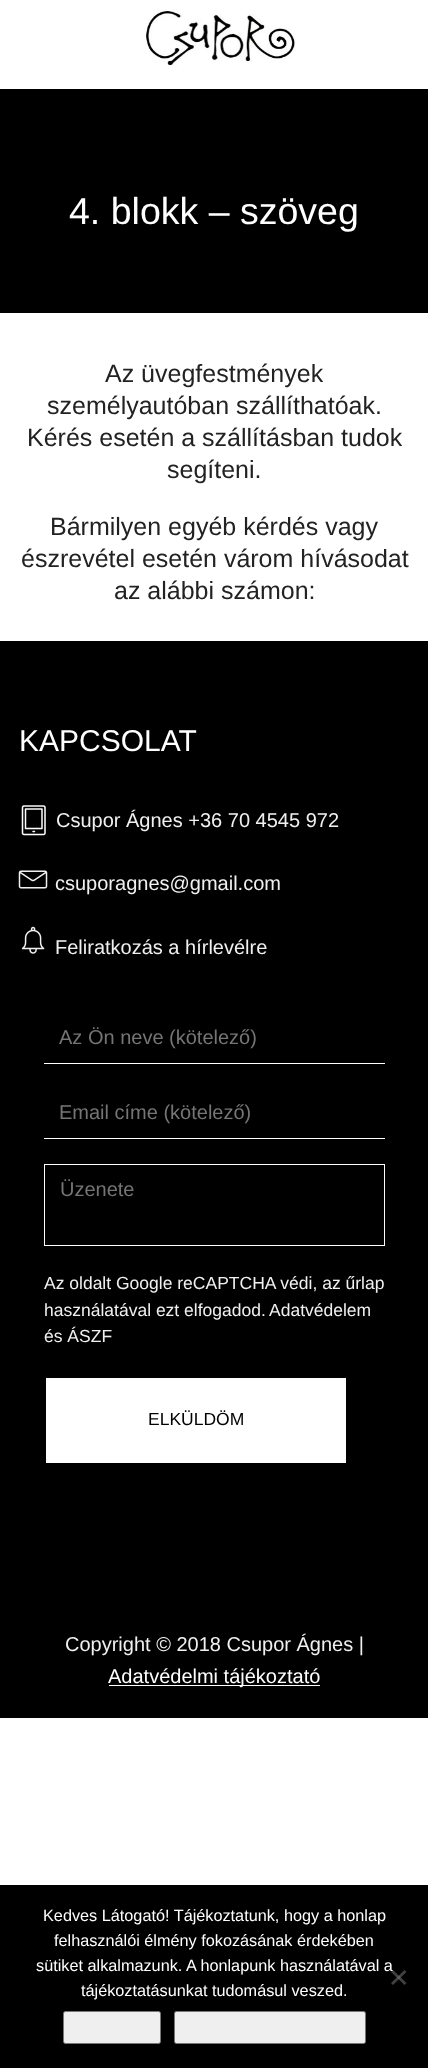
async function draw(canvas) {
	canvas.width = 428;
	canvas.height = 2068;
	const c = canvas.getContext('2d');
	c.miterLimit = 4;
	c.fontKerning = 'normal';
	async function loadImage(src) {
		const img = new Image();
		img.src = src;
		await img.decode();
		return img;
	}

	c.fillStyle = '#fff';
	c.fillRect(0, 0, 428, 2068);
	c.drawImage(await loadImage('img1.png'), 146, 9, 150, 58);
	c.fillStyle = '#000';
	c.fillRect(0, 89, 428, 224);
	c.font = '37.5px Liberation Sans';
	c.fillStyle = '#fff';
	c.fillText('4. blokk – szöveg', 69, 224);
	c.font = '25px Liberation Sans';
	c.fillStyle = '#222';
	for (const [text, x, y] of [
		['Az üvegfestmények', 105, 382],
		['személyautóban szállíthatóak.', 47, 414],
		['Kérés esetén a szállításban tudok', 27, 446],
		['segíteni.', 167, 478],
		['Bármilyen egyéb kérdés vagy', 50, 535],
		['észrevétel esetén várom hívásodat', 21, 567],
		['az alábbi számon:', 114, 599],
	]) {
		c.fillText(text, x, y);
	}
	c.fillStyle = '#000';
	c.fillRect(0, 641, 428, 1077);
	c.font = '30px Liberation Sans';
	c.fillStyle = '#fff';
	c.fillText('KAPCSOLAT', 19, 751);
	c.drawImage(await loadImage('img2.png'), 21, 805, 25, 31);
	c.font = '20px Liberation Sans';
	c.fillStyle = '#f0f0f0';
	c.fillText('Csupor Ágnes +36 70 4545 972', 56, 827);
	c.drawImage(await loadImage('img3.png'), 18, 870, 30, 19);
	c.fillText('csuporagnes@gmail.com', 55, 890);
	c.drawImage(await loadImage('img4.png'), 21, 926, 24, 28);
	c.fillText('Feliratkozás a hírlevélre', 55, 954);
	c.fillStyle = '#fff';
	c.fillRect(44, 1063, 341, 1);
	c.fillStyle = '#757575';
	c.fillText('Az Ön neve (kötelező)', 59, 1044);
	c.fillStyle = '#fff';
	c.fillRect(44, 1138, 341, 1);
	c.fillStyle = '#757575';
	c.fillText('Email címe (kötelező)', 59, 1119);
	c.strokeStyle = '#fff';
	c.strokeRect(44.5, 1164.5, 340, 81);
	c.fillText('Üzenete', 60, 1196);
	c.font = '17.5px Liberation Sans';
	c.fillStyle = '#f0f0f0';
	for (const [text, x, y] of [
		['Az oldalt Google reCAPTCHA védi, az űrlap', 44, 1289],
		['használatával ezt elfogadod.', 44, 1316],
		['Adatvédelem', 269, 1316],
		['és ÁSZF', 44, 1342],
	]) {
		c.fillText(text, x, y);
	}
	c.fillStyle = '#fff';
	c.fillRect(46, 1378, 300, 85);
	c.fillStyle = '#000';
	c.fillText('ELKÜLDÖM', 148, 1425);
	c.font = '20px Liberation Sans';
	c.fillStyle = '#f0f0f0';
	c.fillText('Copyright © 2018 Csupor Ágnes |', 65, 1651);
	c.fillStyle = '#fff';
	c.fillRect(109, 1685, 211, 1);
	c.fillText('Adatvédelmi tájékoztató', 108, 1683);
	c.fillStyle = '#000';
	c.fillRect(0, 1885, 428, 183);
	c.font = '16.25px Liberation Sans';
	c.fillStyle = '#fff';
	for (const [text, x, y] of [
		['Kedves Látogató! Tájékoztatunk, hogy a honlap', 43, 1921],
		['felhasználói élmény fokozásának érdekében', 54, 1946],
		['sütiket alkalmazunk. A honlapunk használatával a', 36, 1971],
		['tájékoztatásunkat tudomásul veszed.', 81, 1996],
	]) {
		c.fillText(text, x, y);
	}
	c.fillStyle = '#404040';
	c.beginPath();
	c.moveTo(404.5, 1970);
	c.lineTo(406.5, 1972);
	c.lineTo(393, 1985);
	c.lineTo(391, 1983);
	c.closePath();
	c.fill();
	c.fillStyle = '#80808080';
	c.beginPath();
	c.moveTo(391, 1972);
	c.lineTo(393, 1970);
	c.lineTo(406.5, 1983);
	c.lineTo(404.5, 1985);
	c.closePath();
	c.fill();
	c.fillStyle = '#efefef';
	c.beginPath();
	c.roundRect(63.5, 2011.5, 97, 32, 2);
	c.fill();
	c.strokeStyle = '#767676';
	c.stroke();
	c.beginPath();
	c.roundRect(174.5, 2011.5, 191, 32, 2);
	c.fill();
	c.stroke();
}

draw(document.querySelector('canvas'));
